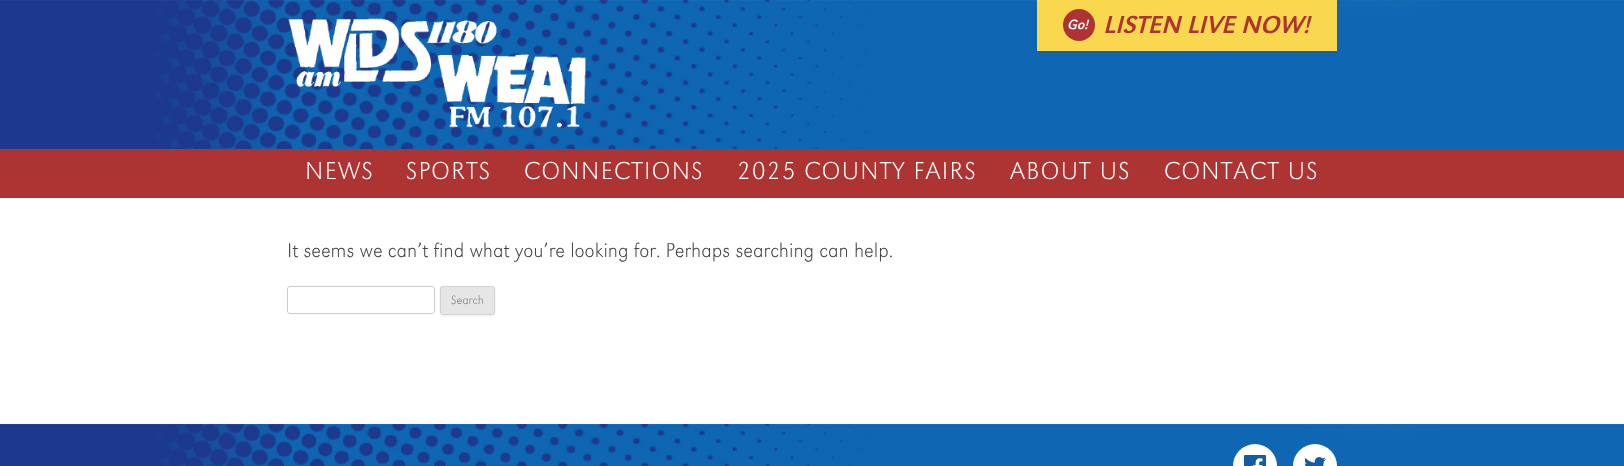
async function draw(canvas) {
	canvas.width = 1624;
	canvas.height = 466;
	const c = canvas.getContext('2d');
	c.miterLimit = 4;
	c.fontKerning = 'normal';
	async function loadImage(src) {
		const img = new Image();
		img.src = src;
		await img.decode();
		return img;
	}

	c.fillStyle = '#fff';
	c.fillRect(0, 0, 1624, 466);
	c.drawImage(await loadImage('img1.png'), 0, 0, 1624, 149);
	c.fillStyle = '#f9d74e';
	c.fillRect(1037, 0, 300, 51);
	c.fillStyle = '#ae3433';
	c.beginPath();
	c.arc(1079, 25, 16, 0, 2 * Math.PI);
	c.fill();
	c.font = 'italic 14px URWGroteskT';
	c.fillStyle = '#fff';
	c.fillText('Go!', 1067, 29);
	c.font = 'italic 25.5px URWGroteskT';
	c.fillStyle = '#ae3433';
	c.fillText('LISTEN LIVE NOW!', 1103, 33);
	c.drawImage(await loadImage('img2.png'), 288, 18, 298, 110);
	c.fillRect(0, 149, 1624, 49);
	c.letterSpacing = '1.4px';
	c.font = '25.5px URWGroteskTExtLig';
	c.fillStyle = '#fff';
	for (const [text, x, y] of [
		['NEWS', 305, 179],
		['SPORTS', 406, 179],
		['CONNECTIONS', 524, 179],
		['2025 COUNTY FAIRS', 737, 179],
		['ABOUT US', 1010, 179],
		['CONTACT US', 1164, 179],
	]) {
		c.fillText(text, x, y);
	}
	c.letterSpacing = '0px';
	c.font = '20.8px URWGroteskTExtLig';
	c.fillStyle = '#444';
	c.fillText('It seems we can’t find what you’re looking for. Perhaps searching can help.', 287, 257);
	c.beginPath();
	c.roundRect(287.5, 286.5, 147, 27, 2.5);
	c.strokeStyle = '#ccc';
	c.stroke();
	c.fillStyle = '#4040401a';
	c.filter = 'blur(1px)';
	c.beginPath();
	c.roundRect(440, 287, 55, 29, 3);
	c.fill();
	c.filter = 'none';
	c.fillStyle = '#e6e6e6';
	c.beginPath();
	c.roundRect(440.5, 286.5, 54, 28, 2.5);
	c.fill();
	c.strokeStyle = '#d2d2d2';
	c.stroke();
	c.font = '12.5px URWGroteskTExtLig';
	c.fillStyle = '#7c7c7c';
	c.fillText('Search', 451, 304);
	c.drawImage(await loadImage('img3.png'), 0, 424, 1624, 42);
	c.fillStyle = '#fff';
	c.beginPath();
	c.arc(1255, 466, 22, 0, 2 * Math.PI);
	c.fill();
	c.drawImage(await loadImage('img4.png'), 1244, 455, 22, 11);
	c.beginPath();
	c.arc(1315, 466, 22, 0, 2 * Math.PI);
	c.fill();
	c.drawImage(await loadImage('img5.png'), 1304, 457, 22, 9);
}

draw(document.querySelector('canvas'));
